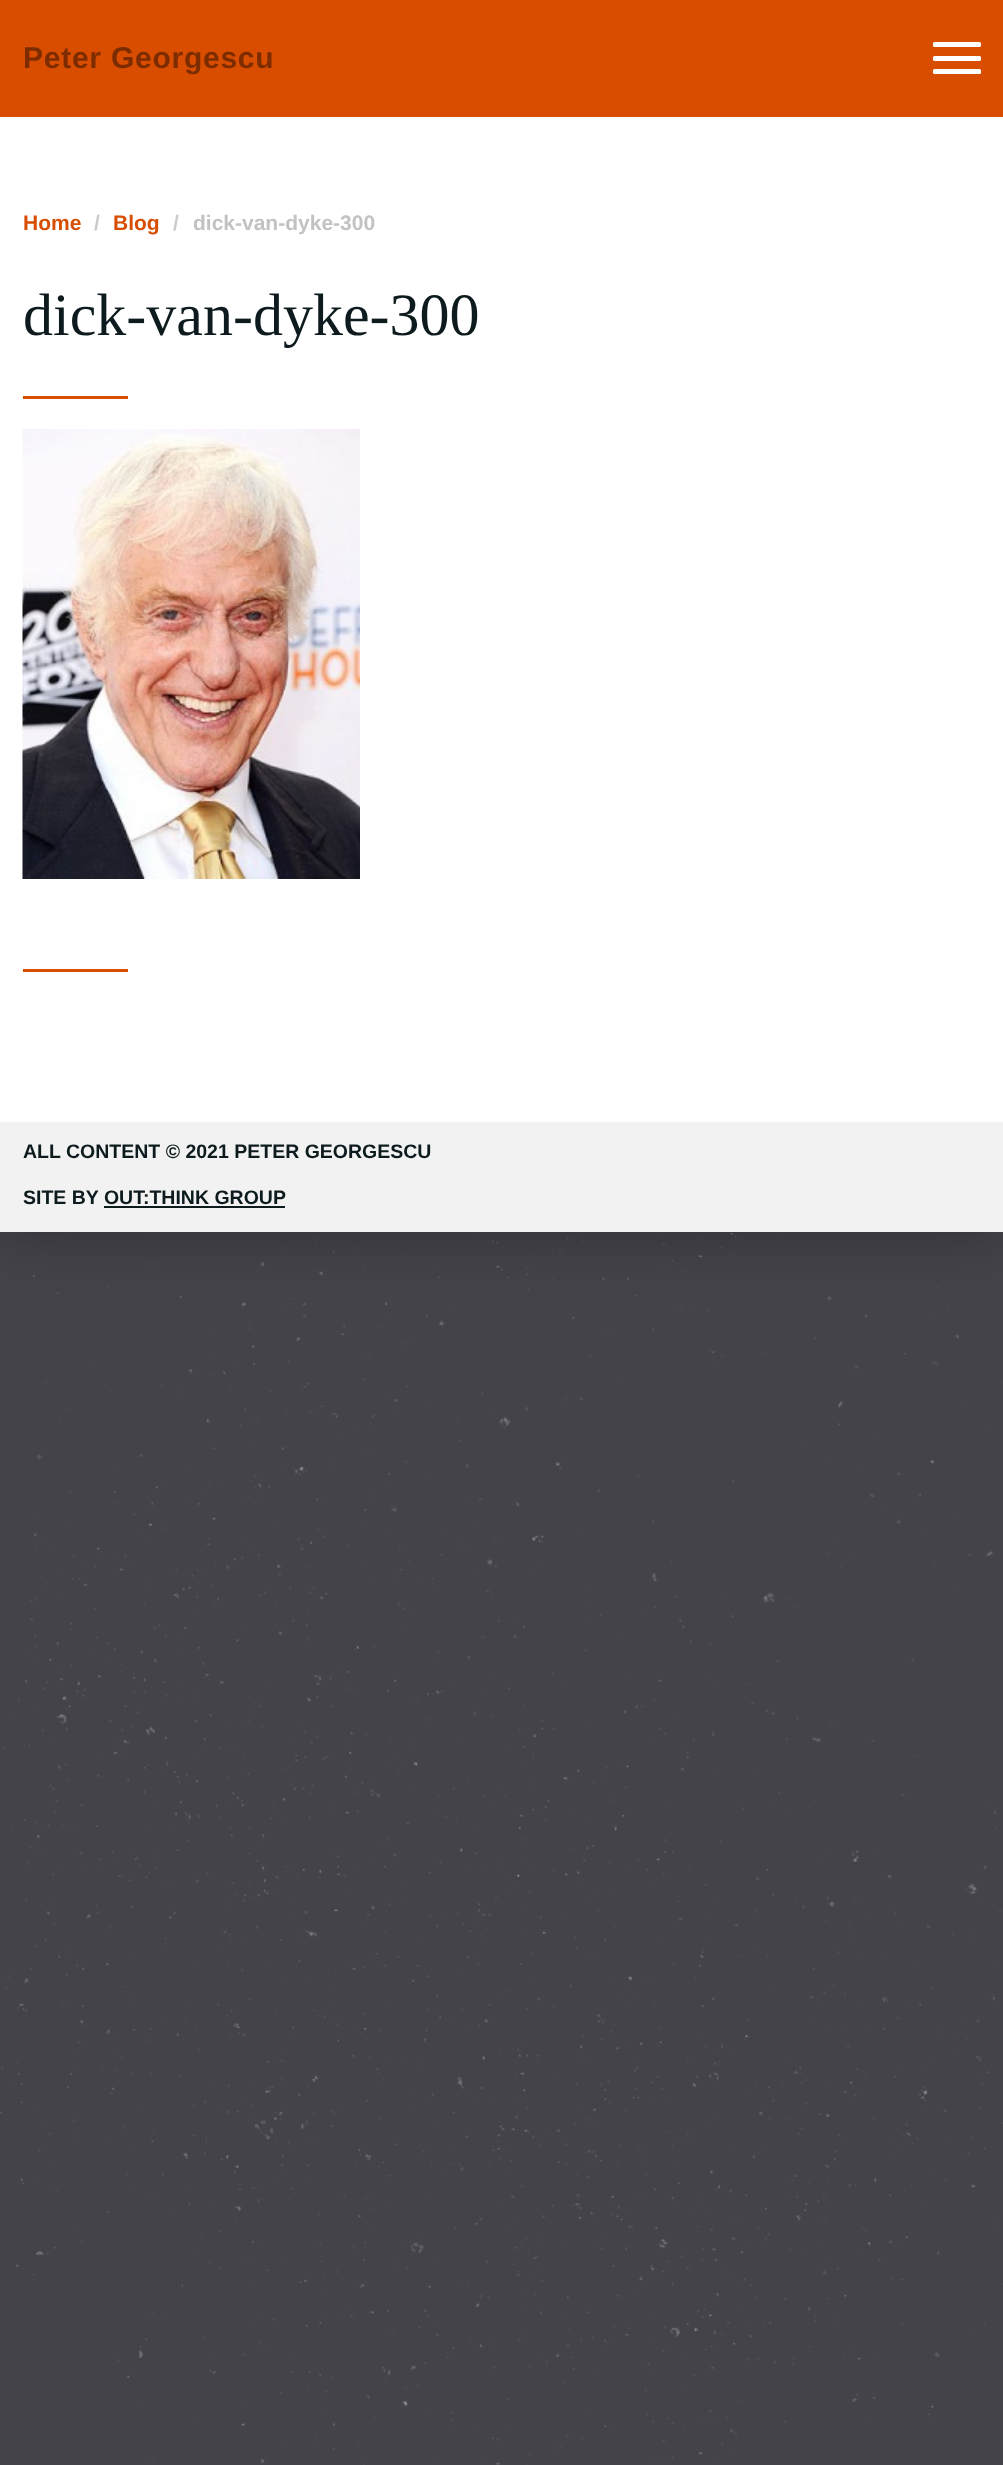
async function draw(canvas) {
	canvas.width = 1003;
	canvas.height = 2465;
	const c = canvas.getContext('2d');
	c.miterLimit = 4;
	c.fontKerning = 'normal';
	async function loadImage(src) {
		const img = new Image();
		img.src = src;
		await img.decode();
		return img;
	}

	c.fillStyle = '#fff';
	c.fillRect(0, 0, 1003, 2465);
	c.drawImage(await loadImage('img1.png'), 0, 1232, 1003, 1233);
	c.fillStyle = '#0000004d';
	c.filter = 'blur(30px)';
	c.beginPath();
	c.rect(0, 0, 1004, 1232);
	c.fill();
	c.filter = 'none';
	c.fillStyle = '#fff';
	c.fillRect(0, 117, 1003, 1005);
	c.fillStyle = '#d94d00';
	c.fillRect(0, 0, 1003, 117);
	c.letterSpacing = '0.75px';
	c.font = 'bold 30px Liberation Sans';
	c.fillStyle = '#7d2c00';
	c.fillText('Peter Georgescu', 23, 68);
	c.fillStyle = '#fff';
	c.beginPath();
	c.roundRect(933, 42, 48, 5, 1.5);
	c.fill();
	c.beginPath();
	c.roundRect(933, 56, 48, 5, 1.5);
	c.fill();
	c.beginPath();
	c.roundRect(933, 69, 48, 5, 1.5);
	c.fill();
	c.letterSpacing = '0px';
	c.font = 'bold 21px Liberation Sans';
	c.fillStyle = '#d94d00';
	c.fillText('Home', 23, 230);
	c.fillStyle = '#ccc';
	c.fillText('/', 94, 230);
	c.fillStyle = '#d94d00';
	c.fillText('Blog', 113, 230);
	c.fillStyle = '#ccc';
	c.fillText('/', 173, 230);
	c.fillStyle = '#c2c2c2';
	c.fillText('dick-van-dyke-300', 193, 230);
	c.font = '60px Liberation Serif';
	c.fillStyle = '#0d1b1e';
	c.fillText('dick-van-dyke-300', 23, 335);
	c.fillStyle = '#d94d00';
	c.fillRect(23, 396, 105, 3);
	c.drawImage(await loadImage('img2.png'), 22, 429, 338, 450);
	c.fillRect(23, 969, 105, 3);
	c.fillStyle = '#f2f2f2';
	c.fillRect(0, 1122, 1003, 110);
	c.font = 'bold 19.5px Liberation Sans';
	c.fillStyle = '#0d1b1e';
	c.fillText('ALL CONTENT © 2021 PETER GEORGESCU', 23, 1158);
	c.fillText('SITE BY OUT:THINK GROUP', 23, 1204);
	c.fillRect(104, 1206, 181, 2);
}

draw(document.querySelector('canvas'));
